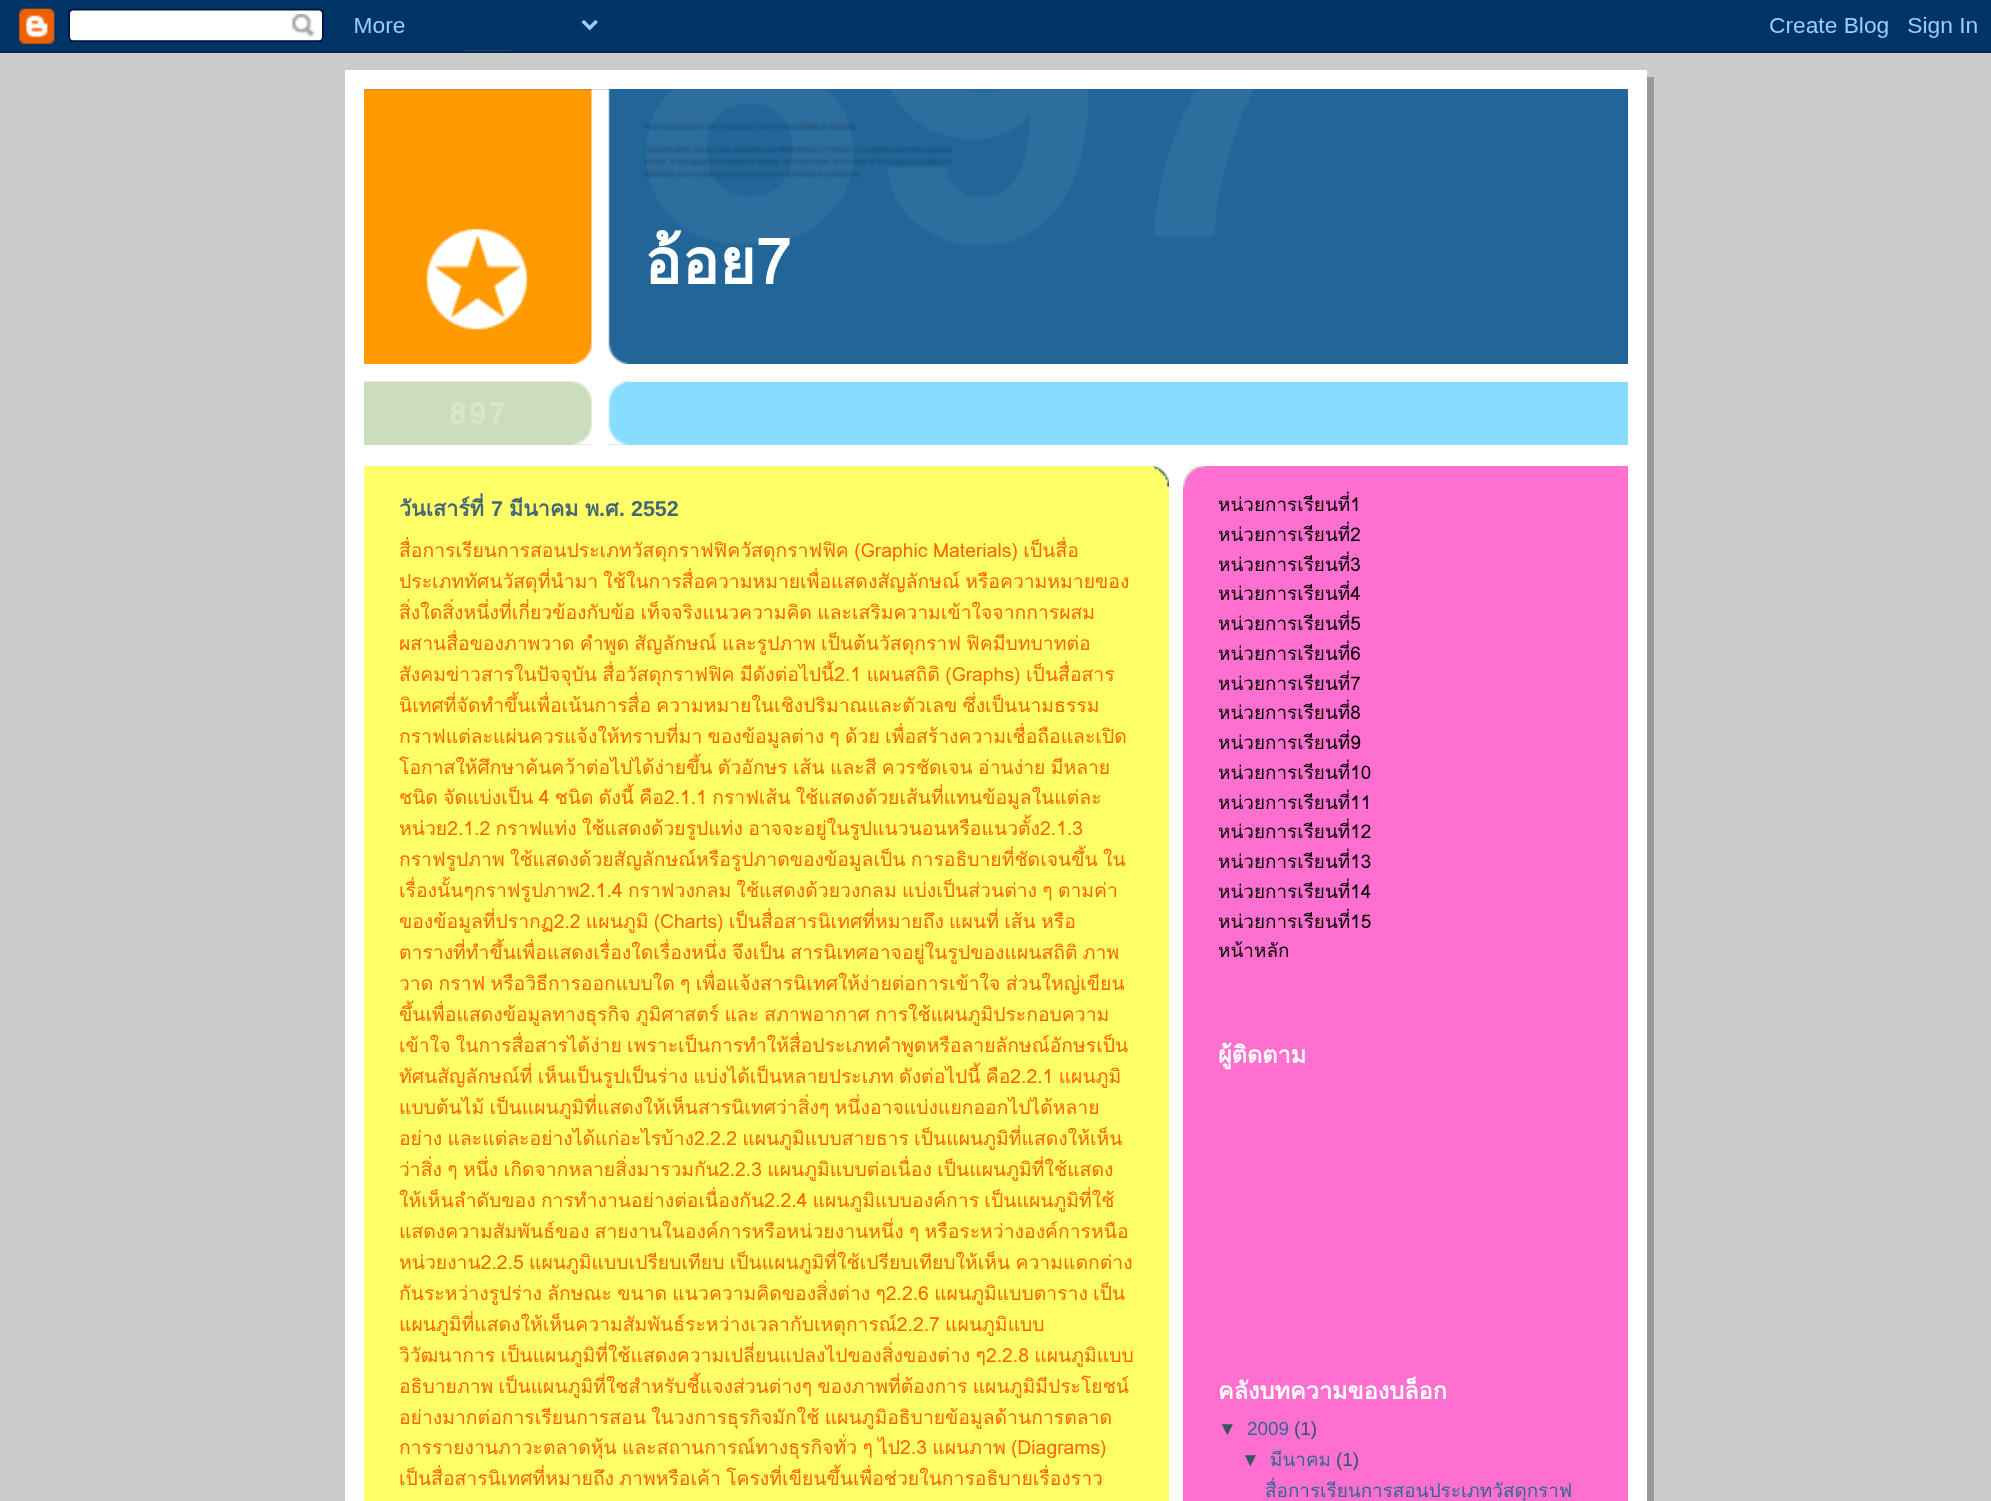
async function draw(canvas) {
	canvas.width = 1991;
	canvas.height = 1501;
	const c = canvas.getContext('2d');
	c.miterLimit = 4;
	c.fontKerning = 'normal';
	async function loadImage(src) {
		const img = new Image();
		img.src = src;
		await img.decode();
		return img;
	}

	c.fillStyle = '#ccc';
	c.fillRect(0, 0, 1991, 1501);
	c.drawImage(await loadImage('img1.png'), 0, 0, 1991, 53);
	for (const [x, y, w, h, color] of [
		[1647, 77, 7, 1424, '#999'],
		[345, 70, 1302, 1431, '#fff'],
		[364, 89, 1264, 275, '#269'],
	]) {
		c.fillStyle = color;
		c.fillRect(x, y, w, h);
	}
	c.drawImage(await loadImage('img2.png'), 364, 89, 266, 275);
	c.drawImage(await loadImage('img3.png'), 644, 89, 610, 156);
	c.font = 'bold 62.5px Loma';
	c.fillStyle = '#fff';
	c.fillText('อ้อย7', 644, 284);
	c.fillStyle = '#8df';
	c.fillRect(608, 382, 1020, 63);
	c.drawImage(await loadImage('img4.png'), 364, 381, 266, 64);
	c.drawImage(await loadImage('img5.png'), 572, 424, 58, 21);
	c.drawImage(await loadImage('img6.png'), 450, 402, 55, 22);
	c.fillStyle = '#ff6';
	c.fillRect(364, 466, 805, 1035);
	c.drawImage(await loadImage('img7.png'), 1152, 466, 17, 21);
	c.font = 'bold 21.5px Loma';
	c.fillStyle = '#467';
	c.fillText('วันเสาร์ที่', 399, 516);
	c.font = 'bold 21.5px Liberation Sans';
	c.fillText('7', 491, 516);
	c.font = 'bold 21.5px Loma';
	c.fillText('มีนาคม', 509, 516);
	c.fillText('พ', 585, 516);
	c.font = 'bold 21.5px Liberation Sans';
	c.fillText('.', 599, 516);
	c.font = 'bold 21.5px Loma';
	c.fillText('ศ', 605, 516);
	c.font = 'bold 21.5px Liberation Sans';
	c.fillText('. 2552', 619, 516);
	c.wordSpacing = '-1px';
	c.font = '19.35px Loma';
	c.fillStyle = '#f60';
	c.fillText('สื่อการเรียนการสอนประเภทวัสดุกราฟฟิควัสดุกราฟฟิค (Graphic Materials) เป็นสื่อ', 399, 557);
	c.wordSpacing = '-1.25px';
	for (const [text, x, y] of [
		['ประเภททัศนวัสดุที่นำมา ใช้ในการสื่อความหมายเพื่อแสดงสัญลักษณ์ หรือความหมายของ', 399, 588],
		['สิ่งใดสิ่งหนึ่งที่เกี่ยวข้องกับข้อ เท็จจริงแนวความคิด และเสริมความเข้าใจจากการผสม', 399, 619],
		['ผสานสื่อของภาพวาด คำพูด สัญลักษณ์ และรูปภาพ เป็นต้นวัสดุกราฟ ฟิคมีบทบาทต่อ', 399, 650],
	]) {
		c.fillText(text, x, y);
	}
	c.wordSpacing = '-1px';
	c.fillText('สังคมข่าวสารในปัจจุบัน สื่อวัสดุกราฟฟิค มีดังต่อไปนี้2.1 แผนสถิติ (Graphs) เป็นสื่อสาร', 399, 681);
	c.wordSpacing = '-1.25px';
	for (const [text, x, y] of [
		['นิเทศที่จัดทำขึ้นเพื่อเน้นการสื่อ ความหมายในเชิงปริมาณและตัวเลข ซึ่งเป็นนามธรรม', 399, 712],
		['กราฟแต่ละแผ่นควรแจ้งให้ทราบที่มา ของข้อมูลต่าง ๆ ด้วย เพื่อสร้างความเชื่อถือและเปิด', 399, 743],
		['โอกาสให้ศึกษาค้นคว้าต่อไปได้ง่ายขึ้น ตัวอักษร เส้น และสี ควรชัดเจน อ่านง่าย มีหลาย', 399, 774],
		['ชนิด จัดแบ่งเป็น 4 ชนิด ดังนี้ คือ2.1.1 กราฟเส้น ใช้แสดงด้วยเส้นที่แทนข้อมูลในแต่ละ', 399, 804],
		['หน่วย2.1.2 กราฟแท่ง ใช้แสดงด้วยรูปแท่ง อาจจะอยู่ในรูปแนวนอนหรือแนวตั้ง2.1.3', 399, 835],
		['กราฟรูปภาพ ใช้แสดงด้วยสัญลักษณ์หรือรูปภาดของข้อมูลเป็น การอธิบายที่ชัดเจนขึ้น ใน', 399, 866],
		['เรื่องนั้นๆกราฟรูปภาพ2.1.4 กราฟวงกลม ใช้แสดงด้วยวงกลม แบ่งเป็นส่วนต่าง ๆ ตามค่า', 399, 897],
		['ของข้อมูลที่ปรากฏ2.2 แผนภูมิ (Charts) เป็นสื่อสารนิเทศที่หมายถึง แผนที่ เส้น หรือ', 399, 928],
		['ตารางที่ทำขึ้นเพื่อแสดงเรื่องใดเรื่องหนึ่ง จึงเป็น สารนิเทศอาจอยู่ในรูปของแผนสถิติ ภาพ', 399, 959],
		['วาด กราฟ หรือวิธีการออกแบบใด ๆ เพื่อแจ้งสารนิเทศให้ง่ายต่อการเข้าใจ ส่วนใหญ่เขียน', 399, 990],
		['ขึ้นเพื่อแสดงข้อมูลทางธุรกิจ ภูมิศาสตร์ และ สภาพอากาศ การใช้แผนภูมิประกอบความ', 399, 1021],
		['เข้าใจ ในการสื่อสารได้ง่าย เพราะเป็นการทำให้สื่อประเภทคำพูดหรือลายลักษณ์อักษรเป็น', 399, 1052],
		['ทัศนสัญลักษณ์ที่ เห็นเป็นรูปเป็นร่าง แบ่งได้เป็นหลายประเภท ดังต่อไปนี้ คือ2.2.1 แผนภูมิ', 399, 1083],
		['แบบต้นไม้ เป็นแผนภูมิที่แสดงให้เห็นสารนิเทศว่าสิ่งๆ หนึ่งอาจแบ่งแยกออกไปได้หลาย', 399, 1114],
		['อย่าง และแต่ละอย่างได้แก่อะไรบ้าง2.2.2 แผนภูมิแบบสายธาร เป็นแผนภูมิที่แสดงให้เห็น', 399, 1145],
		['ว่าสิ่ง ๆ หนึ่ง เกิดจากหลายสิ่งมารวมกัน2.2.3 แผนภูมิแบบต่อเนื่อง เป็นแผนภูมิที่ใช้แสดง', 399, 1176],
		['ให้เห็นลำดับของ การทำงานอย่างต่อเนื่องกัน2.2.4 แผนภูมิแบบองค์การ เป็นแผนภูมิที่ใช้', 399, 1207],
		['แสดงความสัมพันธ์ของ สายงานในองค์การหรือหน่วยงานหนึ่ง ๆ หรือระหว่างองค์การหนือ', 399, 1238],
		['หน่วยงาน2.2.5 แผนภูมิแบบเปรียบเทียบ เป็นแผนภูมิที่ใช้เปรียบเทียบให้เห็น ความแตกต่าง', 399, 1269],
		['กันระหว่างรูปร่าง ลักษณะ ขนาด แนวความคิดของสิ่งต่าง ๆ2.2.6 แผนภูมิแบบตาราง เป็น', 399, 1300],
		['แผนภูมิที่แสดงให้เห็นความสัมพันธ์ระหว่างเวลากับเหตุการณ์2.2.7 แผนภูมิแบบ', 399, 1331],
		['วิวัฒนาการ เป็นแผนภูมิที่ใช้แสดงความเปลี่ยนแปลงไปของสิ่งของต่าง ๆ2.2.8 แผนภูมิแบบ', 399, 1362],
		['อธิบายภาพ เป็นแผนภูมิที่ใชสำหรับชี้แจงส่วนต่างๆ ของภาพที่ต้องการ แผนภูมิมีประโยชน์', 399, 1393],
		['อย่างมากต่อการเรียนการสอน ในวงการธุรกิจมักใช้ แผนภูมิอธิบายข้อมูลด้านการตลาด', 399, 1424],
		['การรายงานภาวะตลาดหุ้น และสถานการณ์ทางธุรกิจทั่ว ๆ ไป2.3 แผนภาพ (Diagrams)', 399, 1454],
		['เป็นสื่อสารนิเทศที่หมายถึง ภาพหรือเค้า โครงที่เขียนขึ้นเพื่อช่วยในการอธิบายเรื่องราว', 399, 1485],
	]) {
		c.fillText(text, x, y);
	}
	c.fillStyle = '#ff6fcf';
	c.fillRect(1183, 466, 445, 1035);
	c.drawImage(await loadImage('img8.png'), 1183, 466, 21, 21);
	c.wordSpacing = '0px';
	c.font = '18.9px Loma';
	c.fillStyle = '#000';
	for (const [text, x, y] of [
		['หน่วยการเรียนที่1', 1218, 511],
		['หน่วยการเรียนที่2', 1218, 541],
		['หน่วยการเรียนที่3', 1218, 571],
		['หน่วยการเรียนที่4', 1218, 600],
		['หน่วยการเรียนที่5', 1218, 630],
		['หน่วยการเรียนที่6', 1218, 660],
		['หน่วยการเรียนที่7', 1218, 690],
		['หน่วยการเรียนที่8', 1218, 719],
		['หน่วยการเรียนที่9', 1218, 749],
		['หน่วยการเรียนที่10', 1218, 779],
		['หน่วยการเรียนที่11', 1218, 809],
		['หน่วยการเรียนที่12', 1218, 838],
		['หน่วยการเรียนที่13', 1218, 868],
		['หน่วยการเรียนที่14', 1218, 898],
		['หน่วยการเรียนที่15', 1218, 928],
		['หน้าหลัก', 1218, 957],
	]) {
		c.fillText(text, x, y);
	}
	c.font = 'bold 23.5px Loma';
	c.fillStyle = '#fff';
	c.fillText('ผู้ติดตาม', 1218, 1063);
	c.fillText('คลังบทความของบล็อก', 1218, 1399);
	c.font = '18.9px Liberation Sans';
	c.fillStyle = '#356';
	c.fillText('▼', 1218, 1435);
	c.fillStyle = '#369';
	c.fillText('2009', 1247, 1435);
	c.fillStyle = '#356';
	c.fillText('(1)', 1294, 1435);
	c.fillText('▼', 1241, 1466);
	c.font = '18.9px Loma';
	c.fillStyle = '#369';
	c.fillText('มีนาคม', 1270, 1466);
	c.font = '18.9px Liberation Sans';
	c.fillStyle = '#356';
	c.fillText('(1)', 1336, 1466);
	c.font = '18.9px Loma';
	c.fillStyle = '#369';
	c.fillText('สื่อการเรียนการสอนประเภทวัสดุกราฟ', 1265, 1497);
}

draw(document.querySelector('canvas'));
